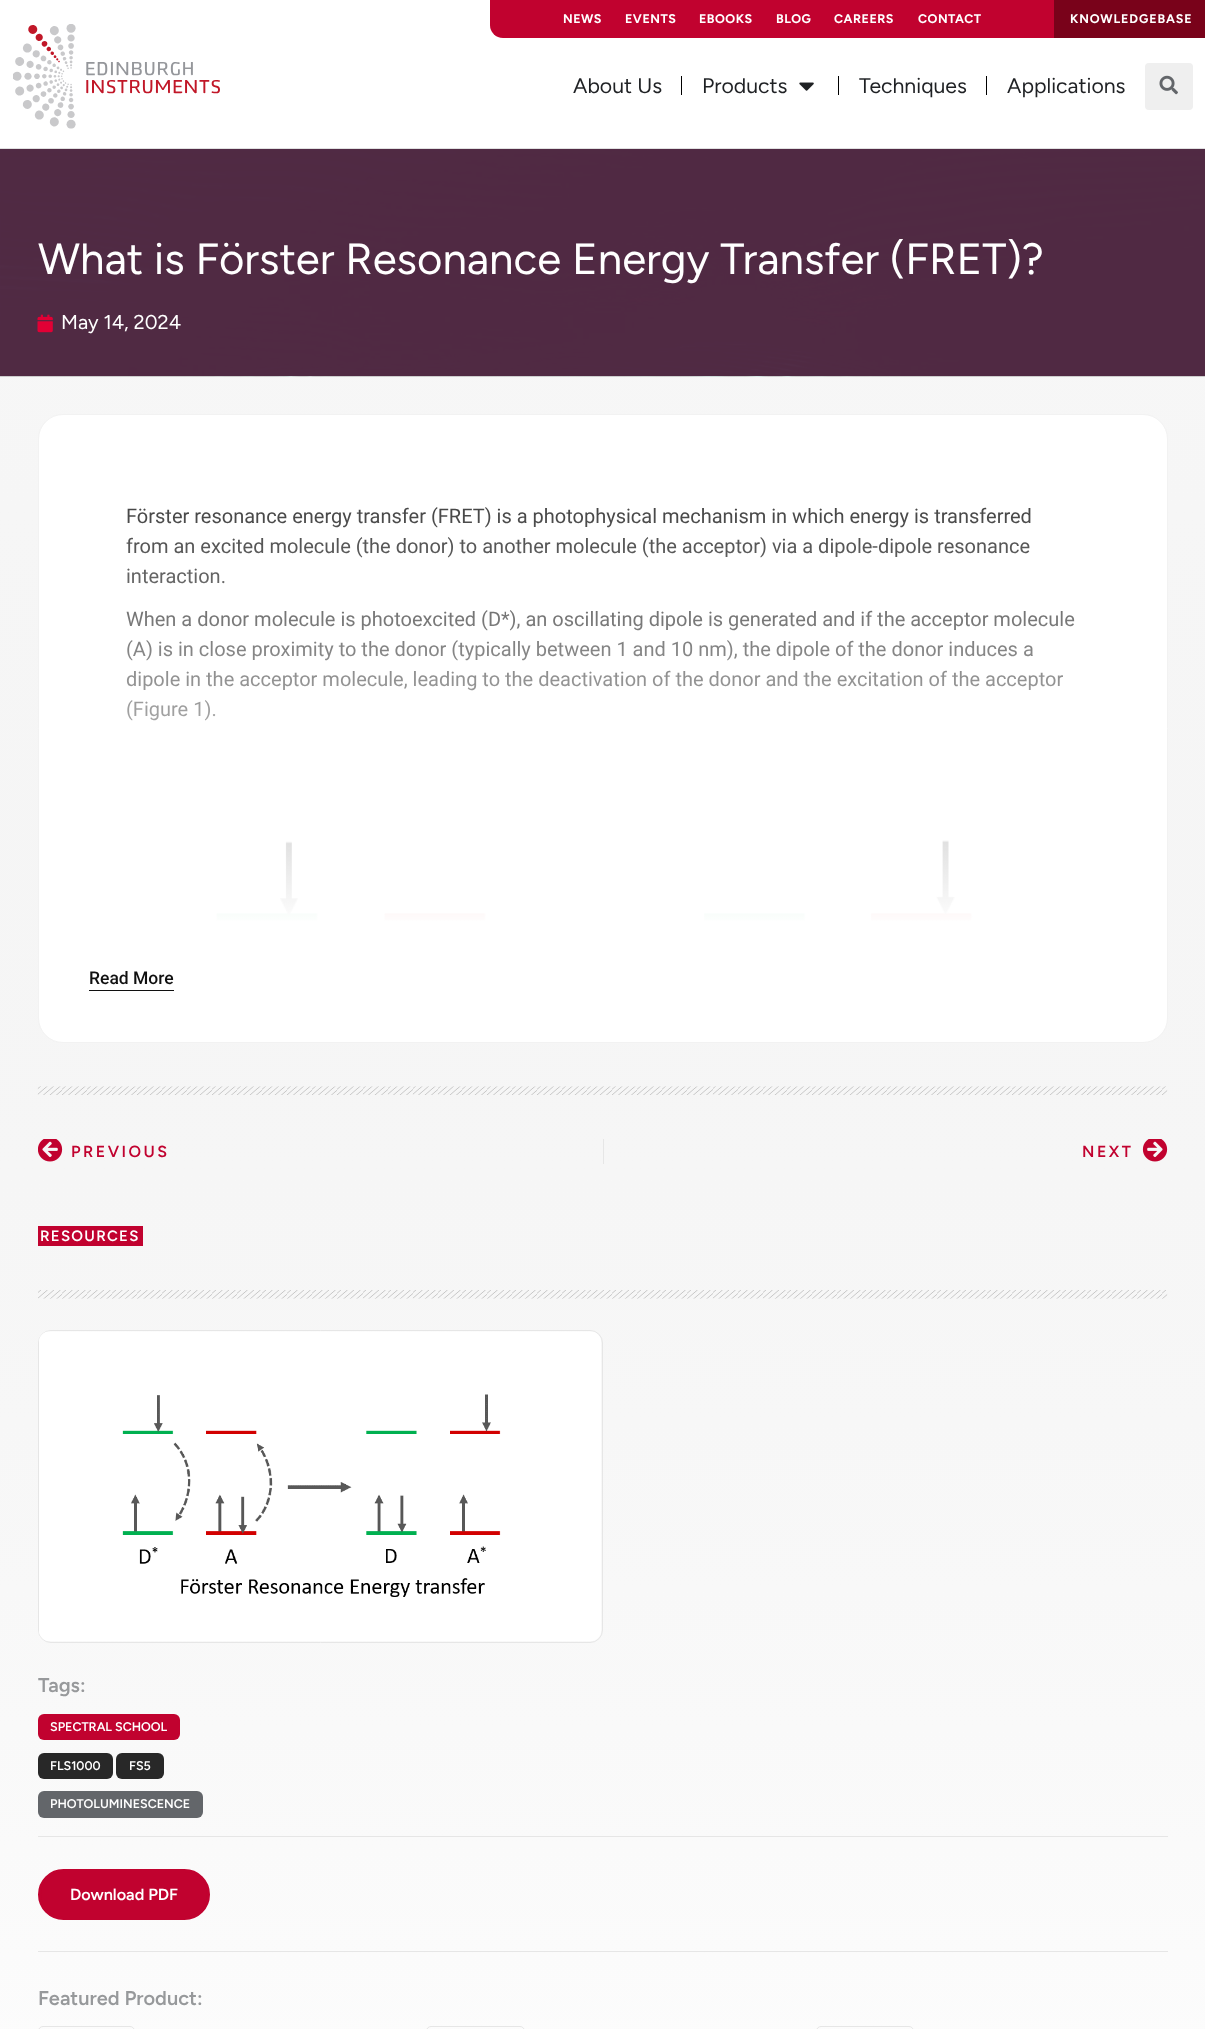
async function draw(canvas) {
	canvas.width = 1205;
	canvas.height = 2029;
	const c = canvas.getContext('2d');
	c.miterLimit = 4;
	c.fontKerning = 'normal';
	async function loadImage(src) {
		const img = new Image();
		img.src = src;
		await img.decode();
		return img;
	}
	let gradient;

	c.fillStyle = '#fff';
	c.fillRect(0, 0, 1205, 2029);
	c.fillStyle = '#e0e0e1';
	c.fillRect(0, 148, 1205, 1);
	c.drawImage(await loadImage('img1.png'), 13, 24, 207, 105);
	c.fillStyle = '#c1022f';
	c.beginPath();
	c.roundRect(490, 0, 564, 38, [0, 0, 0, 13]);
	c.fill();
	c.letterSpacing = '0.5px';
	c.font = 'bold 12.5px Figtree';
	c.fillStyle = '#fff';
	for (const [text, x, y] of [
		['NEWS', 563, 23],
		['EVENTS', 625, 23],
		['EBOOKS', 699, 23],
		['BLOG', 776, 23],
		['CAREERS', 834, 23],
		['CONTACT', 918, 23],
	]) {
		c.fillText(text, x, y);
	}
	c.fillStyle = '#79021a';
	c.fillRect(1054, 0, 151, 38);
	c.letterSpacing = '0.9px';
	c.fillStyle = '#fff';
	c.fillText('KNOWLEDGEBASE', 1070, 23);
	c.letterSpacing = '0px';
	c.font = '21.25px Figtree';
	c.fillStyle = '#1f2124';
	c.fillText('About Us', 573, 93);
	c.fillStyle = '#000';
	c.fillRect(681, 76, 1, 19);
	c.fillStyle = '#1f2124';
	c.fillText('Products', 702, 93);
	c.drawImage(await loadImage('img2.png'), 799, 82, 15, 9);
	c.fillStyle = '#000';
	c.fillRect(838, 76, 1, 19);
	c.fillStyle = '#1f2124';
	c.fillText('Techniques', 859, 93);
	c.fillStyle = '#000';
	c.fillRect(986, 76, 1, 19);
	c.fillStyle = '#1f2124';
	c.fillText('Applications', 1007, 93);
	c.fillStyle = '#efefef';
	c.beginPath();
	c.roundRect(1145, 63, 48, 47, 4);
	c.fill();
	c.drawImage(await loadImage('img3.png'), 1159, 75, 19, 20);
	c.drawImage(await loadImage('img4.png'), 0, 149, 1205, 228);
	c.font = '43.75px Figtree';
	c.fillStyle = '#fff';
	c.fillText('What is Förster Resonance Energy Transfer (FRET)?', 38, 274);
	c.drawImage(await loadImage('img5.png'), 37, 314, 16, 19);
	c.font = '20px Figtree';
	c.fillText('May 14, 2024', 61, 329);
	gradient = c.createLinearGradient(602, 376, 603, 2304);
	gradient.addColorStop(0, '#e6e6e657');
	gradient.addColorStop(1, '#fff');
	c.fillStyle = gradient;
	c.fillRect(0, 376, 1205, 1653);
	c.fillStyle = '#fff';
	c.beginPath();
	c.roundRect(38.5, 414.5, 1129, 628, 24.5);
	c.fill();
	c.strokeStyle = '#f2f2f2';
	c.stroke();
	c.font = '20px Roboto';
	c.fillStyle = '#333';
	for (const [text, x, y] of [
		['Förster resonance energy transfer (FRET) is a photophysical mechanism in which energy is transferred', 126, 523],
		['from an excited molecule (the donor) to another molecule (the acceptor) via a dipole-dipole resonance', 126, 553],
		['interaction.', 126, 583],
		['When a donor molecule is photoexcited (D*), an oscillating dipole is generated and if the acceptor molecule', 126, 626],
		['(A) is in close proximity to the donor (typically between 1 and 10 nm), the dipole of the donor induces a', 126, 656],
		['dipole in the acceptor molecule, leading to the deactivation of the donor and the excitation of the acceptor', 126, 686],
		['(Figure 1).', 126, 716],
	]) {
		c.fillText(text, x, y);
	}
	c.drawImage(await loadImage('img6.png'), 216, 840, 757, 81);
	gradient = c.createLinearGradient(603, 465, 603, 925);
	gradient.addColorStop(0, '#ffffff00');
	gradient.addColorStop(1, '#fff');
	c.fillStyle = gradient;
	c.fillRect(126, 507, 949, 414);
	c.fillStyle = '#101010';
	c.fillRect(89, 990, 85, 1);
	c.font = '500 17.5px Roboto';
	c.fillText('Read More', 89, 984);
	c.drawImage(await loadImage('img7.png'), 37, 1086, 1131, 9);
	c.drawImage(await loadImage('img8.png'), 38, 1139, 25, 23);
	c.letterSpacing = '2.5px';
	c.font = '600 16px Figtree';
	c.fillStyle = '#c1022f';
	c.fillText('PREVIOUS', 71, 1157);
	c.fillStyle = '#e6e6e6';
	c.fillRect(603, 1139, 1, 25);
	c.fillStyle = '#c1022f';
	c.fillText('NEXT', 1082, 1157);
	c.drawImage(await loadImage('img9.png'), 1142, 1139, 26, 23);
	c.fillRect(38, 1226, 105, 20);
	c.letterSpacing = '1.25px';
	c.font = '600 15px Figtree';
	c.fillStyle = '#fff';
	c.fillText('RESOURCES', 40, 1241);
	c.drawImage(await loadImage('img10.png'), 38, 1290, 1130, 9);
	c.beginPath();
	c.roundRect(38.5, 1330.5, 564, 312, 12.5);
	c.strokeStyle = '#e6e6e6';
	c.stroke();
	c.drawImage(await loadImage('img11.png'), 39, 1331, 562, 310);
	c.letterSpacing = '0px';
	c.font = '600 20px Figtree';
	c.fillStyle = '#97999b';
	c.fillText('Tags:', 38, 1692);
	c.fillStyle = '#c1022f';
	c.beginPath();
	c.roundRect(38, 1714, 142, 26, 6);
	c.fill();
	c.font = '600 12.5px Figtree';
	c.fillStyle = '#fff';
	c.fillText('SPECTRAL SCHOOL', 50, 1731);
	c.fillStyle = '#282828';
	c.beginPath();
	c.roundRect(38, 1753, 75, 26, 6);
	c.fill();
	c.fillStyle = '#fff';
	c.fillText('FLS1000', 50, 1770);
	c.fillStyle = '#282828';
	c.beginPath();
	c.roundRect(116, 1753, 48, 26, 6);
	c.fill();
	c.fillStyle = '#fff';
	c.fillText('FS5', 129, 1770);
	c.fillStyle = '#63666a';
	c.beginPath();
	c.roundRect(38, 1791, 165, 27, 6);
	c.fill();
	c.fillStyle = '#fff';
	c.fillText('PHOTOLUMINESCENCE', 50, 1808);
	c.fillStyle = '#e6e6e6';
	c.fillRect(38, 1836, 1130, 1);
	c.fillStyle = '#c1022f';
	c.beginPath();
	c.roundRect(39.5, 1870.5, 169, 48, 24);
	c.fill();
	c.strokeStyle = '#c1022f';
	c.lineWidth = 3;
	c.stroke();
	c.font = '600 16.25px Figtree';
	c.fillStyle = '#fff';
	c.fillText('Download PDF', 70, 1900);
	c.fillStyle = '#e6e6e6';
	c.fillRect(38, 1951, 1130, 1);
	c.font = '600 20px Figtree';
	c.fillStyle = '#97999b';
	c.fillText('Featured Product:', 38, 2005);
	c.beginPath();
	c.roundRect(38.5, 2026.5, 96, 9, 5.5);
	c.strokeStyle = '#e6e6e6';
	c.lineWidth = 1;
	c.stroke();
	c.beginPath();
	c.roundRect(426.5, 2026.5, 98, 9, 5.5);
	c.stroke();
	c.beginPath();
	c.roundRect(816.5, 2026.5, 97, 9, 5.5);
	c.stroke();
}

draw(document.querySelector('canvas'));
